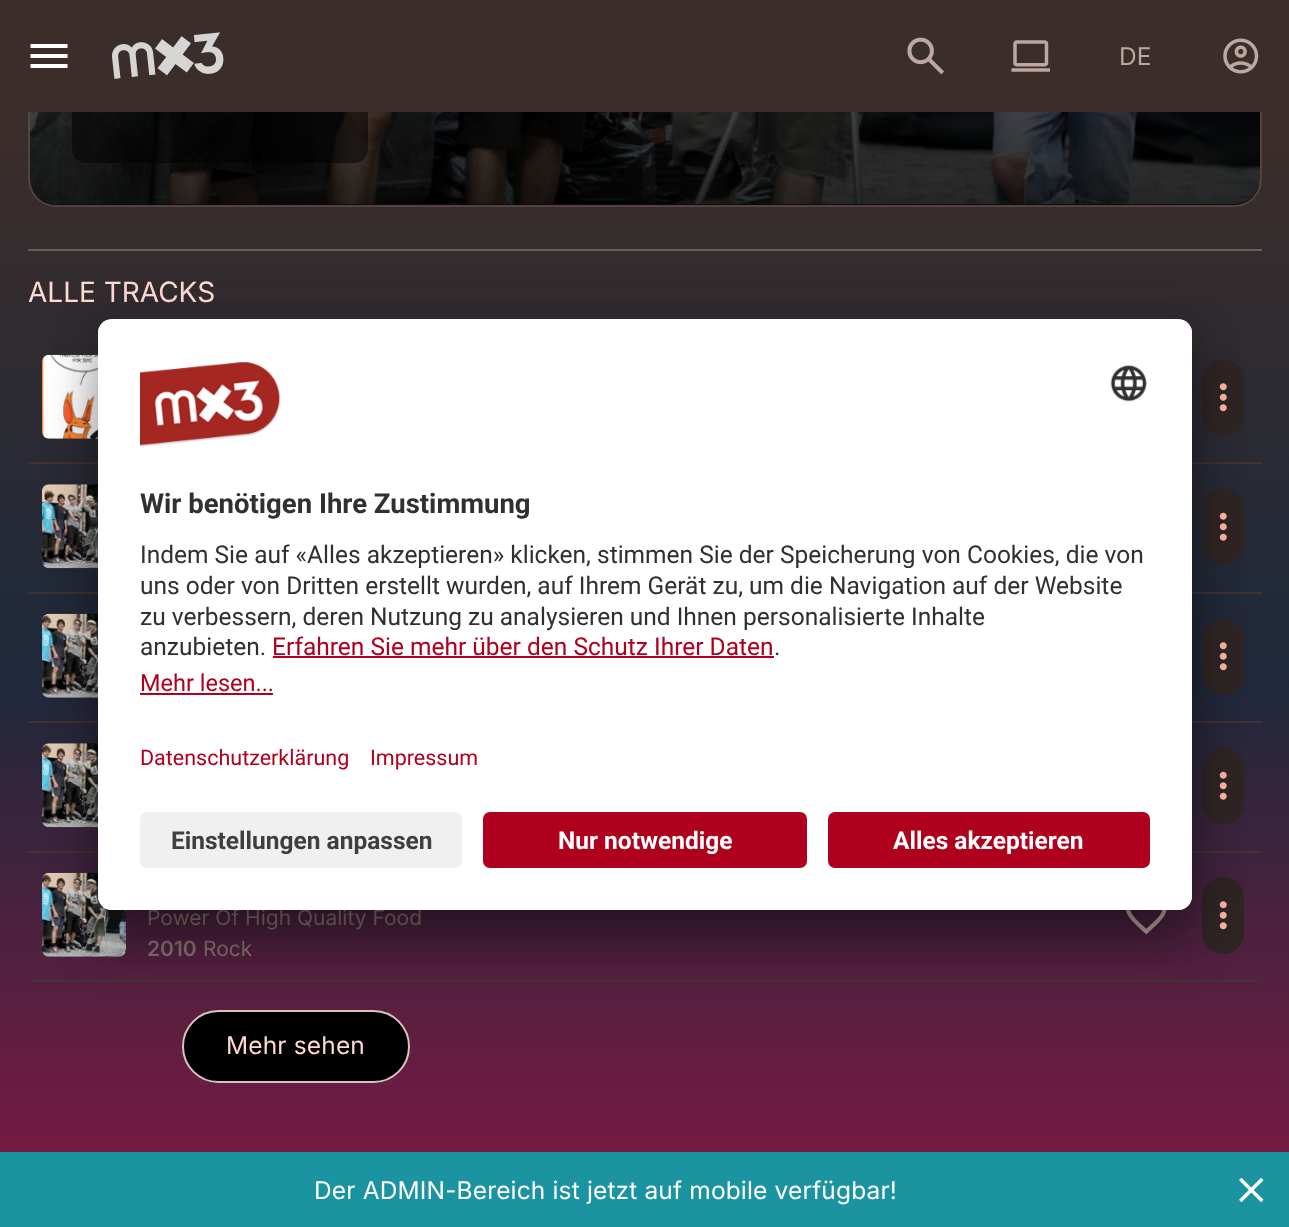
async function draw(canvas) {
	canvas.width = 1289;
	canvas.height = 1227;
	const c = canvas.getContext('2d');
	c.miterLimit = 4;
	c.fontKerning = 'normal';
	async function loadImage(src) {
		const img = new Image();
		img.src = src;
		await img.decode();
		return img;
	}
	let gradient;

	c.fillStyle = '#fff';
	c.fillRect(0, 0, 1289, 1227);
	gradient = c.createLinearGradient(645, 0, 645, 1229);
	gradient.addColorStop(0.1, '#3b2d2a');
	gradient.addColorStop(0.55, '#1e293b');
	gradient.addColorStop(1, '#831843');
	c.fillStyle = gradient;
	c.fillRect(0, 112, 1289, 1040);
	c.beginPath();
	c.roundRect(28, 0, 1234, 207, [0, 0, 28, 28]);
	c.fill();
	c.beginPath();
	c.roundRect(29, -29, 1232, 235, 27);
	c.strokeStyle = '#534340';
	c.lineWidth = 2;
	c.stroke();
	c.drawImage(await loadImage('img5.png'), 29, 112, 1231, 93);
	gradient = c.createLinearGradient(645, 205, 645, -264);
	gradient.addColorStop(0, '#000000cc');
	gradient.addColorStop(1, '#00000033');
	c.fillStyle = gradient;
	c.beginPath();
	c.roundRect(30, -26, 1230, 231, 26);
	c.fill();
	c.fillStyle = '#00000080';
	c.beginPath();
	c.roundRect(72, 65, 296, 98, 14);
	c.fill();
	gradient = c.createLinearGradient(645, 0, 645, 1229);
	gradient.addColorStop(0.1, '#3b2d2a');
	gradient.addColorStop(0.55, '#1e293b');
	gradient.addColorStop(1, '#831843');
	c.fillStyle = gradient;
	c.fillRect(0, 0, 1289, 112);
	c.fillStyle = '#fff';
	c.beginPath();
	c.moveTo(30.5, 68);
	c.lineTo(30.5, 64);
	c.lineTo(67.5, 64);
	c.lineTo(67.5, 68);
	c.closePath();
	c.moveTo(30.5, 58);
	c.lineTo(30.5, 54);
	c.lineTo(67.5, 54);
	c.lineTo(67.5, 58);
	c.closePath();
	c.moveTo(30.5, 48);
	c.lineTo(30.5, 44);
	c.lineTo(67.5, 44);
	c.lineTo(67.5, 48);
	c.closePath();
	c.fill();
	c.drawImage(await loadImage('img1.png'), 112, 32, 112, 47);
	c.drawImage(await loadImage('img2.png'), 907, 37, 37, 38);
	c.drawImage(await loadImage('img3.png'), 1011, 40, 39, 32);
	c.letterSpacing = '0.15px';
	c.font = '24.5px Inter';
	c.fillStyle = '#bca7a2';
	c.fillText('DE', 1119, 65);
	c.drawImage(await loadImage('img4.png'), 1223, 38, 36, 36);
	c.fillStyle = '#6c5b57';
	c.fillRect(28, 249, 1234, 2);
	c.letterSpacing = '0px';
	c.font = '28px Inter';
	c.fillStyle = '#ffdad2';
	c.fillText('ALLE TRACKS', 28, 302);
	c.drawImage(await loadImage('img6.png'), 42, 354, 56, 85);
	c.fillStyle = '#2f2525';
	c.beginPath();
	c.moveTo(1244, 380);
	c.lineTo(1244, 415);
	c.bezierCurveTo(1244, 426, 1235, 436, 1223, 436);
	c.bezierCurveTo(1212, 436, 1202, 426, 1202, 415);
	c.lineTo(1202, 380);
	c.bezierCurveTo(1202, 368, 1212, 359, 1223, 359);
	c.bezierCurveTo(1235, 359, 1244, 368, 1244, 380);
	c.closePath();
	c.fill();
	c.drawImage(await loadImage('img7.png'), 1219, 383, 8, 29);
	c.fillStyle = '#433232';
	c.fillRect(28, 462, 1234, 2);
	c.drawImage(await loadImage('img8.png'), 42, 484, 56, 85);
	c.fillStyle = '#2f2525';
	c.beginPath();
	c.moveTo(1244, 509);
	c.lineTo(1244, 544);
	c.bezierCurveTo(1244, 556, 1235, 565, 1223, 565);
	c.bezierCurveTo(1212, 565, 1202, 556, 1202, 544);
	c.lineTo(1202, 509);
	c.bezierCurveTo(1202, 498, 1212, 488, 1223, 488);
	c.bezierCurveTo(1235, 488, 1244, 498, 1244, 509);
	c.closePath();
	c.fill();
	c.drawImage(await loadImage('img9.png'), 1219, 512, 8, 29);
	c.fillStyle = '#433232';
	c.fillRect(28, 592, 1234, 2);
	c.drawImage(await loadImage('img10.png'), 42, 613, 56, 85);
	c.fillStyle = '#2f2525';
	c.beginPath();
	c.moveTo(1244, 639);
	c.lineTo(1244, 674);
	c.bezierCurveTo(1244, 685, 1235, 695, 1223, 695);
	c.bezierCurveTo(1212, 695, 1202, 685, 1202, 674);
	c.lineTo(1202, 639);
	c.bezierCurveTo(1202, 627, 1212, 618, 1223, 618);
	c.bezierCurveTo(1235, 618, 1244, 627, 1244, 639);
	c.closePath();
	c.fill();
	c.drawImage(await loadImage('img7.png'), 1219, 642, 8, 29);
	c.fillStyle = '#433232';
	c.fillRect(28, 721, 1234, 2);
	c.drawImage(await loadImage('img11.png'), 42, 743, 56, 85);
	c.fillStyle = '#2f2525';
	c.beginPath();
	c.moveTo(1244, 768);
	c.lineTo(1244, 803);
	c.bezierCurveTo(1244, 815, 1235, 824, 1223, 824);
	c.bezierCurveTo(1212, 824, 1202, 815, 1202, 803);
	c.lineTo(1202, 768);
	c.bezierCurveTo(1202, 757, 1212, 747, 1223, 747);
	c.bezierCurveTo(1235, 747, 1244, 757, 1244, 768);
	c.closePath();
	c.fill();
	c.drawImage(await loadImage('img9.png'), 1219, 771, 8, 29);
	c.fillStyle = '#433232';
	c.fillRect(28, 851, 1234, 2);
	c.drawImage(await loadImage('img12.png'), 42, 872, 84, 85);
	c.font = '21px Inter';
	c.fillStyle = '#85736f';
	c.fillText('Power Of High Quality Food', 147, 925);
	c.font = '600 21px Inter';
	c.fillText('2010', 147, 956);
	c.font = '21px Inter';
	c.fillText('Rock', 203, 956);
	c.drawImage(await loadImage('img13.png'), 1126, 910, 41, 25);
	c.fillStyle = '#2f2525';
	c.beginPath();
	c.moveTo(1244, 898);
	c.lineTo(1244, 933);
	c.bezierCurveTo(1244, 944, 1235, 954, 1223, 954);
	c.bezierCurveTo(1212, 954, 1202, 944, 1202, 933);
	c.lineTo(1202, 898);
	c.bezierCurveTo(1202, 886, 1212, 877, 1223, 877);
	c.bezierCurveTo(1235, 877, 1244, 886, 1244, 898);
	c.closePath();
	c.fill();
	c.drawImage(await loadImage('img7.png'), 1219, 901, 8, 29);
	c.fillStyle = '#433232';
	c.fillRect(28, 980, 1234, 2);
	c.fillStyle = '#000';
	c.beginPath();
	c.roundRect(183, 1011, 226, 71, 35.5);
	c.fill();
	c.strokeStyle = '#d8c2bd';
	c.stroke();
	c.letterSpacing = '0.15px';
	c.font = '24.5px Inter';
	c.fillStyle = '#ffdad2';
	c.fillText('Mehr sehen', 226, 1054);
	c.fillStyle = '#0000004d';
	c.filter = 'blur(24.5px)';
	c.beginPath();
	c.roundRect(98, 354, 1094, 591, 14);
	c.fill();
	c.filter = 'none';
	c.fillStyle = '#00000038';
	c.filter = 'blur(23px)';
	c.beginPath();
	c.roundRect(98, 327, 1094, 592, 14);
	c.fill();
	c.filter = 'none';
	c.fillStyle = '#fff';
	c.beginPath();
	c.roundRect(98, 319, 1094, 591, 14);
	c.fill();
	c.save();
	c.beginPath();
	c.roundRect(98, 319, 1094, 591, 14);
	c.clip();
	c.beginPath();
	c.roundRect(98, 319, 1094, 479, [14, 14, 0, 0]);
	c.clip();
	c.fillRect(98, 320, 1094, 478);
	c.restore();
	c.drawImage(await loadImage('img14.png'), 140, 362, 140, 85);
	c.drawImage(await loadImage('img15.png'), 1110, 365, 37, 37);
	c.letterSpacing = '0px';
	c.font = 'bold 27.5px Roboto';
	c.fillStyle = '#303030';
	c.fillText('Wir benötigen Ihre Zustimmung', 140, 513);
	c.font = '24.5px Roboto';
	for (const [text, x, y] of [
		['Indem Sie auf «Alles akzeptieren» klicken, stimmen Sie der Speicherung von Cookies, die von', 140, 563],
		['uns oder von Dritten erstellt wurden, auf Ihrem Gerät zu, um die Navigation auf der Website', 140, 594],
		['zu verbessern, deren Nutzung zu analysieren und Ihnen personalisierte Inhalte', 140, 625],
		['anzubieten.', 140, 655],
	]) {
		c.fillText(text, x, y);
	}
	c.fillStyle = '#af001e';
	c.fillText('Erfahren Sie mehr über den Schutz Ihrer Daten', 272, 655);
	c.fillRect(273, 656, 501, 2);
	c.fillStyle = '#303030';
	c.fillText('.', 774, 655);
	c.font = '23.5px Roboto';
	c.fillStyle = '#af001e';
	c.fillText('Mehr lesen...', 140, 691);
	c.fillRect(140, 693, 133, 2);
	c.font = '21.5px Roboto';
	c.fillText('Datenschutzerklärung', 140, 765);
	c.fillText('Impressum', 370, 765);
	c.fillStyle = '#fff';
	c.beginPath();
	c.roundRect(98, 798, 1094, 112, [0, 0, 14, 14]);
	c.fill();
	c.fillStyle = '#f0f0f0';
	c.beginPath();
	c.roundRect(140, 812, 322, 56, 7);
	c.fill();
	c.font = 'bold 24.5px Roboto';
	c.fillStyle = '#3f3f3f';
	c.fillText('Einstellungen anpassen', 171, 849);
	c.fillStyle = '#af001e';
	c.beginPath();
	c.roundRect(483, 812, 324, 56, 7);
	c.fill();
	c.fillStyle = '#fff';
	c.fillText('Nur notwendige', 558, 849);
	c.fillStyle = '#af001e';
	c.beginPath();
	c.roundRect(828, 812, 322, 56, 7);
	c.fill();
	c.fillStyle = '#fff';
	c.fillText('Alles akzeptieren', 893, 849);
	c.fillStyle = '#1c93a1';
	c.fillRect(0, 1152, 1289, 75);
	c.letterSpacing = '0.15px';
	c.font = '24.5px Inter';
	c.fillStyle = '#fff';
	c.fillText('Der ADMIN-Bereich ist jetzt auf mobile verfügbar!', 314, 1199);
	c.drawImage(await loadImage('img16.png'), 1239, 1177, 25, 26);
}

draw(document.querySelector('canvas'));
